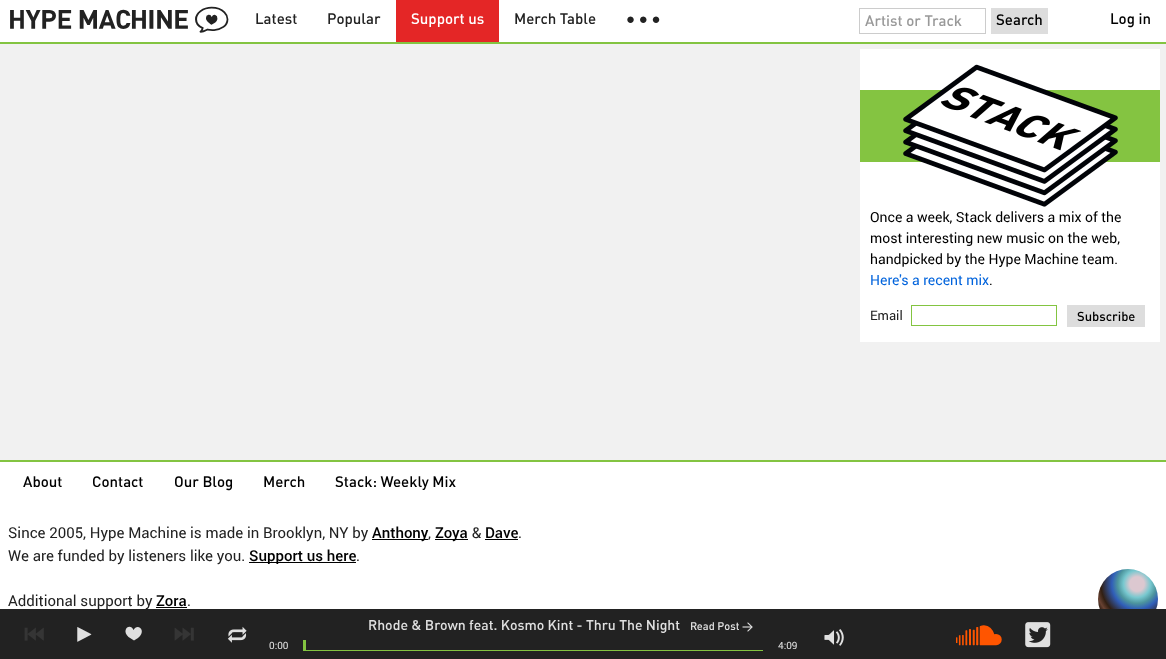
async function draw(canvas) {
	canvas.width = 1166;
	canvas.height = 659;
	const c = canvas.getContext('2d');
	c.miterLimit = 4;
	c.fontKerning = 'normal';
	async function loadImage(src) {
		const img = new Image();
		img.src = src;
		await img.decode();
		return img;
	}
	let gradient;

	c.fillStyle = '#f1f1f1';
	c.fillRect(0, 0, 1166, 659);
	c.fillStyle = '#fff';
	c.fillRect(0, 0, 1166, 42);
	c.fillStyle = '#83c441';
	c.fillRect(0, 42, 1166, 2);
	c.font = '38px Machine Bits';
	c.fillStyle = '#222';
	c.fillText('1', 8, 28);
	c.font = '500 15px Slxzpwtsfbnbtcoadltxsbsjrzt';
	c.fillText('Latest', 255, 24);
	c.fillText('Popular', 327, 24);
	c.fillStyle = '#e42626';
	c.fillRect(396, 0, 103, 42);
	c.fillStyle = '#fff';
	c.fillText('Support us', 411, 24);
	c.fillStyle = '#222';
	c.fillText('Merch Table', 514, 24);
	c.font = 'bold 15px Liberation Serif';
	c.fillText('● ● ●', 626, 24);
	c.strokeStyle = '#ccc';
	c.strokeRect(859.5, 8.5, 126, 25);
	c.font = '500 15px Slxzpwtsfbnbtcoadltxsbsjrzt';
	c.fillStyle = '#999';
	c.fillText('Artist or Track', 865, 26);
	c.fillStyle = '#ddd';
	c.fillRect(991, 8, 57, 26);
	c.fillStyle = '#000';
	c.fillText('Search', 996, 25);
	c.fillText('Log in', 1110, 24);
	c.fillStyle = '#fff';
	c.fillRect(860, 49, 300, 293);
	c.drawImage(await loadImage('img1.png'), 860, 64, 300, 143);
	c.font = '14px Roboto';
	c.fillStyle = '#000';
	for (const [text, x, y] of [
		['Once a week, Stack delivers a mix of the', 870, 222],
		['most interesting new music on the web,', 870, 243],
		['handpicked by the Hype Machine team.', 870, 264],
	]) {
		c.fillText(text, x, y);
	}
	c.fillStyle = '#0063dc';
	c.fillText('Here\'s a recent mix', 870, 285);
	c.fillStyle = '#000';
	c.fillText('.', 989, 285);
	c.font = '13px Roboto';
	c.fillStyle = '#222';
	c.fillText('Email', 870, 320);
	c.strokeStyle = '#83c441';
	c.strokeRect(911.5, 305.5, 145, 20);
	c.fillStyle = '#ddd';
	c.fillRect(1067, 305, 78, 22);
	c.font = '500 13px Slxzpwtsfbnbtcoadltxsbsjrzt';
	c.fillStyle = '#000';
	c.fillText('Subscribe', 1077, 321);
	c.fillStyle = '#fff';
	c.fillRect(0, 462, 1166, 147);
	c.fillStyle = '#83c441';
	c.fillRect(0, 460, 1166, 2);
	c.font = '500 15px Slxzpwtsfbnbtcoadltxsbsjrzt';
	c.fillStyle = '#000';
	for (const [text, x, y] of [
		['About', 23, 487],
		['Contact', 92, 487],
		['Our Blog', 174, 487],
		['Merch', 263, 487],
		['Stack: Weekly Mix', 335, 487],
	]) {
		c.fillText(text, x, y);
	}
	c.font = '15px Roboto';
	c.fillStyle = '#222';
	c.fillText('Since 2005, Hype Machine is made in Brooklyn, NY by', 8, 538);
	c.fillStyle = '#000';
	c.fillRect(372, 539, 56, 1);
	c.font = '500 15px Roboto';
	c.fillText('Anthony', 372, 538);
	c.font = '15px Roboto';
	c.fillStyle = '#222';
	c.fillText(',', 428, 538);
	c.fillStyle = '#000';
	c.fillRect(435, 539, 33, 1);
	c.font = '500 15px Roboto';
	c.fillText('Zoya', 435, 538);
	c.font = '15px Roboto';
	c.fillStyle = '#222';
	c.fillText('&', 472, 538);
	c.font = '500 15px Roboto';
	c.fillStyle = '#000';
	c.fillText('Dave', 485, 538);
	c.fillRect(485, 539, 33, 1);
	c.font = '15px Roboto';
	c.fillStyle = '#222';
	c.fillText('.', 518, 538);
	c.fillText('We are funded by listeners like you.', 8, 561);
	c.fillStyle = '#000';
	c.fillRect(249, 562, 107, 1);
	c.font = '500 15px Roboto';
	c.fillText('Support us here', 249, 561);
	c.font = '15px Roboto';
	c.fillStyle = '#222';
	c.fillText('.', 356, 561);
	c.fillText('Additional support by', 8, 606);
	c.font = '500 15px Roboto';
	c.fillStyle = '#000';
	c.fillText('Zora', 156, 606);
	c.fillRect(156, 607, 31, 1);
	c.font = '15px Roboto';
	c.fillStyle = '#222';
	c.fillText('.', 187, 606);
	gradient = c.createRadialGradient(1137, 584, 0, 1137, 584, 45);
	gradient.addColorStop(0.16, '#dcc8d0');
	gradient.addColorStop(0.3, '#78c8cf');
	gradient.addColorStop(0.43, '#4d959e');
	gradient.addColorStop(0.56, '#305eb9');
	gradient.addColorStop(0.8, '#311f12');
	gradient.addColorStop(0.91, '#684232');
	gradient.addColorStop(1, '#2d1c13');
	c.fillStyle = gradient;
	c.beginPath();
	c.arc(1128, 599, 30, 0, 2 * Math.PI);
	c.fill();
	c.fillStyle = '#222';
	c.fillRect(0, 609, 1166, 50);
	c.drawImage(await loadImage('img2.png'), 24, 627, 20, 14);
	c.drawImage(await loadImage('img3.png'), 77, 627, 15, 15);
	c.fillStyle = '#e0e0e0';
	c.beginPath();
	c.moveTo(133.5, 630);
	c.bezierCurveTo(137, 622.5, 147.5, 630, 138, 638);
	c.lineTo(134, 640.5);
	c.lineTo(128.5, 637);
	c.bezierCurveTo(120.5, 629.5, 130.5, 622.5, 133.5, 630);
	c.closePath();
	c.fill();
	c.drawImage(await loadImage('img4.png'), 174, 627, 20, 14);
	c.drawImage(await loadImage('img5.png'), 227, 626, 20, 17);
	c.font = '500 14px Slxzpwtsfbnbtcoadltxsbsjrzt';
	c.fillText('Rhode & Brown feat. Kosmo Kint - Thru The Night', 368, 630);
	c.font = '500 11px Slxzpwtsfbnbtcoadltxsbsjrzt';
	c.fillText('Read Post →', 690, 630);
	c.font = '20px Machine Bits';
	c.fillStyle = '#f50';
	c.fillText('9', 955, 643);
	c.drawImage(await loadImage('img6.png'), 1025, 622, 26, 26);
	c.font = '10px Roboto';
	c.fillStyle = '#e0e0e0';
	c.fillText('0:00', 269, 649);
	c.fillStyle = '#83c441';
	c.fillRect(303, 650, 460, 1);
	c.fillRect(303, 640, 3, 10);
	c.fillStyle = '#e0e0e0';
	c.fillText('4:09', 778, 649);
	c.drawImage(await loadImage('img7.png'), 824, 629, 20, 17);
}

draw(document.querySelector('canvas'));
